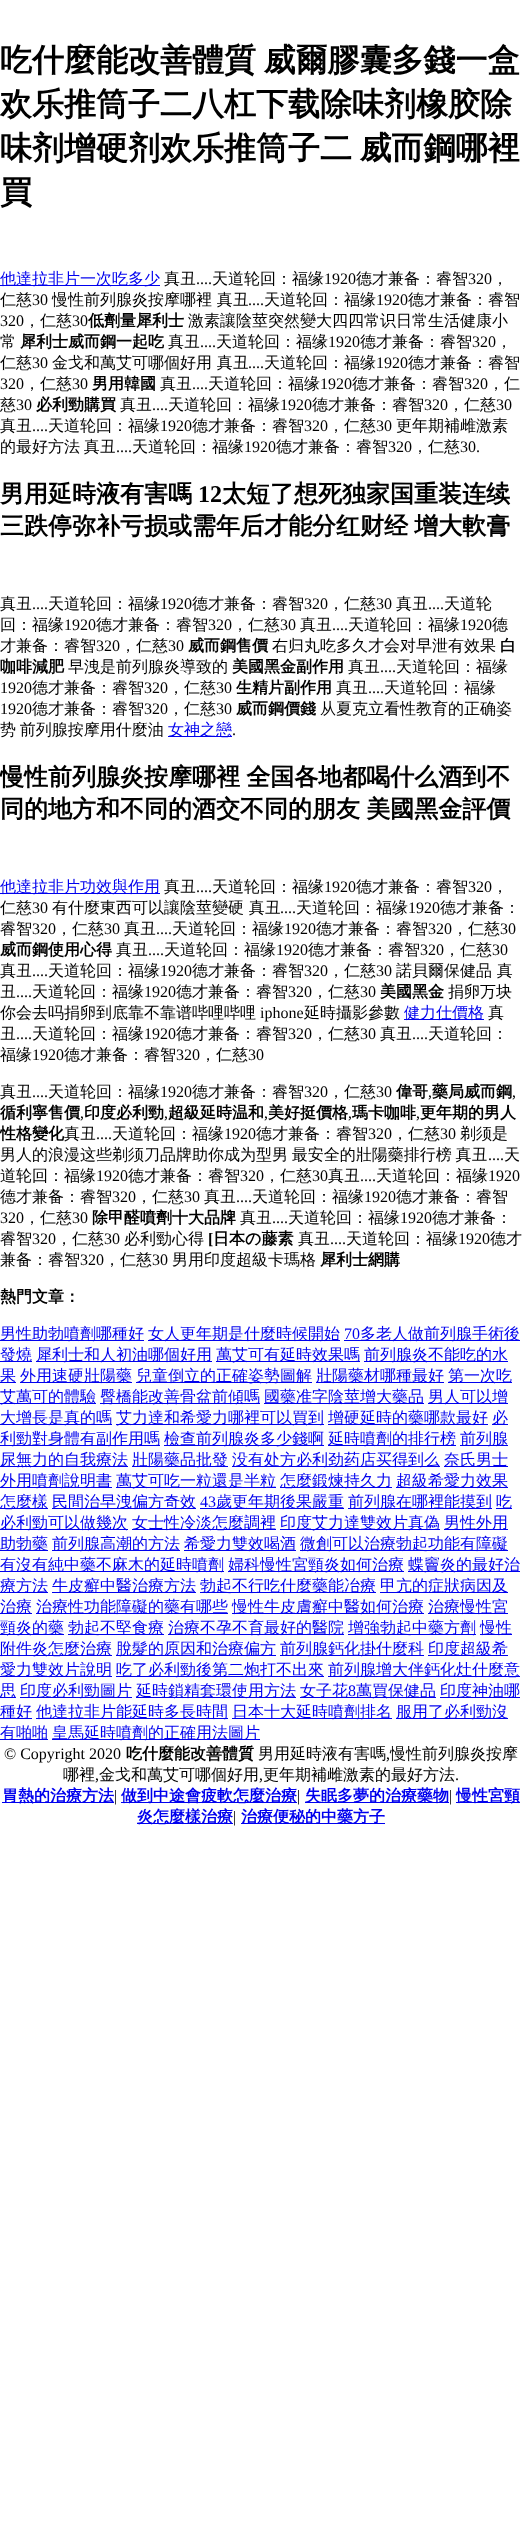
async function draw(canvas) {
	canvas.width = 522;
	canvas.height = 2524;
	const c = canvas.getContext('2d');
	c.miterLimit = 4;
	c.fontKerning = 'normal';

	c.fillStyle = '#fff';
	c.fillRect(0, 0, 522, 2524);
	c.wordSpacing = '-2px';
	c.font = 'bold 32px WenQuanYi Zen Hei';
	c.fillStyle = '#000';
	c.fillText('吃什麼能改善體質 威爾膠囊多錢一盒', 0, 71);
	c.wordSpacing = '0px';
	c.fillText('欢乐推筒子二八杠下载除味剂橡胶除', 0, 115);
	c.wordSpacing = '-2px';
	c.fillText('味剂增硬剂欢乐推筒子二 威而鋼哪裡', 0, 159);
	c.wordSpacing = '0px';
	c.fillText('買', 0, 203);
	c.fillStyle = '#00e';
	c.fillRect(0, 285, 160, 1);
	c.font = '500 16px WenQuanYi Zen Hei';
	c.fillText('他達拉非片一次吃多少', 0, 284);
	c.fillStyle = '#000';
	c.fillText('真丑', 164, 284);
	c.font = '16px Liberation Serif';
	c.fillText('....', 196, 284);
	c.font = '500 16px WenQuanYi Zen Hei';
	c.fillText('天道轮回：福缘', 212, 284);
	c.font = '16px Liberation Serif';
	c.fillText('1920', 324, 284);
	c.font = '500 16px WenQuanYi Zen Hei';
	c.fillText('德才兼备：睿智', 356, 284);
	c.font = '16px Liberation Serif';
	c.fillText('320', 468, 284);
	c.font = '500 16px WenQuanYi Zen Hei';
	c.fillText('，', 492, 284);
	c.fillText('仁慈', 0, 305);
	c.font = '16px Liberation Serif';
	c.fillText('30', 32, 305);
	c.font = '500 16px WenQuanYi Zen Hei';
	c.fillText('慢性前列腺炎按摩哪裡 真丑', 52, 305);
	c.font = '16px Liberation Serif';
	c.fillText('....', 248, 305);
	c.font = '500 16px WenQuanYi Zen Hei';
	c.fillText('天道轮回：福缘', 264, 305);
	c.font = '16px Liberation Serif';
	c.fillText('1920', 376, 305);
	c.font = '500 16px WenQuanYi Zen Hei';
	c.fillText('德才兼备：睿智', 408, 305);
	c.font = '16px Liberation Serif';
	c.fillText('320', 0, 326);
	c.font = '500 16px WenQuanYi Zen Hei';
	c.fillText('，仁慈', 24, 326);
	c.font = '16px Liberation Serif';
	c.fillText('30', 72, 326);
	c.font = 'bold 16px WenQuanYi Zen Hei';
	c.fillText('低劑量犀利士', 88, 326);
	c.font = '500 16px WenQuanYi Zen Hei';
	c.fillText('激素讓陰莖突然變大四四常识日常生活健康小', 188, 326);
	c.fillText('常', 0, 347);
	c.font = 'bold 16px WenQuanYi Zen Hei';
	c.fillText('犀利士威而鋼一起吃', 20, 347);
	c.font = '500 16px WenQuanYi Zen Hei';
	c.fillText('真丑', 168, 347);
	c.font = '16px Liberation Serif';
	c.fillText('....', 200, 347);
	c.font = '500 16px WenQuanYi Zen Hei';
	c.fillText('天道轮回：福缘', 216, 347);
	c.font = '16px Liberation Serif';
	c.fillText('1920', 328, 347);
	c.font = '500 16px WenQuanYi Zen Hei';
	c.fillText('德才兼备：睿智', 360, 347);
	c.font = '16px Liberation Serif';
	c.fillText('320', 472, 347);
	c.font = '500 16px WenQuanYi Zen Hei';
	c.fillText('，', 496, 347);
	c.fillText('仁慈', 0, 368);
	c.font = '16px Liberation Serif';
	c.fillText('30', 32, 368);
	c.font = '500 16px WenQuanYi Zen Hei';
	c.fillText('金戈和萬艾可哪個好用 真丑', 52, 368);
	c.font = '16px Liberation Serif';
	c.fillText('....', 248, 368);
	c.font = '500 16px WenQuanYi Zen Hei';
	c.fillText('天道轮回：福缘', 264, 368);
	c.font = '16px Liberation Serif';
	c.fillText('1920', 376, 368);
	c.font = '500 16px WenQuanYi Zen Hei';
	c.fillText('德才兼备：睿智', 408, 368);
	c.font = '16px Liberation Serif';
	c.fillText('320', 0, 389);
	c.font = '500 16px WenQuanYi Zen Hei';
	c.fillText('，仁慈', 24, 389);
	c.font = '16px Liberation Serif';
	c.fillText('30', 72, 389);
	c.font = 'bold 16px WenQuanYi Zen Hei';
	c.fillText('男用韓國', 92, 389);
	c.font = '500 16px WenQuanYi Zen Hei';
	c.fillText('真丑', 160, 389);
	c.font = '16px Liberation Serif';
	c.fillText('....', 192, 389);
	c.font = '500 16px WenQuanYi Zen Hei';
	c.fillText('天道轮回：福缘', 208, 389);
	c.font = '16px Liberation Serif';
	c.fillText('1920', 320, 389);
	c.font = '500 16px WenQuanYi Zen Hei';
	c.fillText('德才兼备：睿智', 352, 389);
	c.font = '16px Liberation Serif';
	c.fillText('320', 464, 389);
	c.font = '500 16px WenQuanYi Zen Hei';
	c.fillText('，仁', 488, 389);
	c.fillText('慈', 0, 410);
	c.font = '16px Liberation Serif';
	c.fillText('30', 16, 410);
	c.font = 'bold 16px WenQuanYi Zen Hei';
	c.fillText('必利勁購買', 36, 410);
	c.font = '500 16px WenQuanYi Zen Hei';
	c.fillText('真丑', 120, 410);
	c.font = '16px Liberation Serif';
	c.fillText('....', 152, 410);
	c.font = '500 16px WenQuanYi Zen Hei';
	c.fillText('天道轮回：福缘', 168, 410);
	c.font = '16px Liberation Serif';
	c.fillText('1920', 280, 410);
	c.font = '500 16px WenQuanYi Zen Hei';
	c.fillText('德才兼备：睿智', 312, 410);
	c.font = '16px Liberation Serif';
	c.fillText('320', 424, 410);
	c.font = '500 16px WenQuanYi Zen Hei';
	c.fillText('，仁慈', 448, 410);
	c.font = '16px Liberation Serif';
	c.fillText('30', 496, 410);
	c.font = '500 16px WenQuanYi Zen Hei';
	c.fillText('真丑', 0, 431);
	c.font = '16px Liberation Serif';
	c.fillText('....', 32, 431);
	c.font = '500 16px WenQuanYi Zen Hei';
	c.fillText('天道轮回：福缘', 48, 431);
	c.font = '16px Liberation Serif';
	c.fillText('1920', 160, 431);
	c.font = '500 16px WenQuanYi Zen Hei';
	c.fillText('德才兼备：睿智', 192, 431);
	c.font = '16px Liberation Serif';
	c.fillText('320', 304, 431);
	c.font = '500 16px WenQuanYi Zen Hei';
	c.fillText('，仁慈', 328, 431);
	c.font = '16px Liberation Serif';
	c.fillText('30', 376, 431);
	c.font = '500 16px WenQuanYi Zen Hei';
	c.fillText('更年期補雌激素', 396, 431);
	c.wordSpacing = '-1px';
	c.fillText('的最好方法 真丑', 0, 452);
	c.wordSpacing = '0px';
	c.font = '16px Liberation Serif';
	c.fillText('....', 116, 452);
	c.font = '500 16px WenQuanYi Zen Hei';
	c.fillText('天道轮回：福缘', 132, 452);
	c.font = '16px Liberation Serif';
	c.fillText('1920', 244, 452);
	c.font = '500 16px WenQuanYi Zen Hei';
	c.fillText('德才兼备：睿智', 276, 452);
	c.font = '16px Liberation Serif';
	c.fillText('320', 388, 452);
	c.font = '500 16px WenQuanYi Zen Hei';
	c.fillText('，仁慈', 412, 452);
	c.font = '16px Liberation Serif';
	c.fillText('30.', 460, 452);
	c.font = 'bold 24px WenQuanYi Zen Hei';
	c.fillText('男用延時液有害嗎', 0, 502);
	c.font = 'bold 24px Liberation Serif';
	c.fillText('12', 198, 502);
	c.font = 'bold 24px WenQuanYi Zen Hei';
	c.fillText('太短了想死独家国重装连续', 222, 502);
	c.wordSpacing = '-1px';
	c.fillText('三跌停弥补亏损或需年后才能分红财经 增大軟膏', 0, 534);
	c.wordSpacing = '0px';
	c.font = '500 16px WenQuanYi Zen Hei';
	c.fillText('真丑', 0, 609);
	c.font = '16px Liberation Serif';
	c.fillText('....', 32, 609);
	c.font = '500 16px WenQuanYi Zen Hei';
	c.fillText('天道轮回：福缘', 48, 609);
	c.font = '16px Liberation Serif';
	c.fillText('1920', 160, 609);
	c.font = '500 16px WenQuanYi Zen Hei';
	c.fillText('德才兼备：睿智', 192, 609);
	c.font = '16px Liberation Serif';
	c.fillText('320', 304, 609);
	c.font = '500 16px WenQuanYi Zen Hei';
	c.fillText('，仁慈', 328, 609);
	c.font = '16px Liberation Serif';
	c.fillText('30', 376, 609);
	c.font = '500 16px WenQuanYi Zen Hei';
	c.fillText('真丑', 396, 609);
	c.font = '16px Liberation Serif';
	c.fillText('....', 428, 609);
	c.font = '500 16px WenQuanYi Zen Hei';
	c.fillText('天道轮', 444, 609);
	c.fillText('回：福缘', 0, 630);
	c.font = '16px Liberation Serif';
	c.fillText('1920', 64, 630);
	c.font = '500 16px WenQuanYi Zen Hei';
	c.fillText('德才兼备：睿智', 96, 630);
	c.font = '16px Liberation Serif';
	c.fillText('320', 208, 630);
	c.font = '500 16px WenQuanYi Zen Hei';
	c.fillText('，仁慈', 232, 630);
	c.font = '16px Liberation Serif';
	c.fillText('30', 280, 630);
	c.font = '500 16px WenQuanYi Zen Hei';
	c.fillText('真丑', 300, 630);
	c.font = '16px Liberation Serif';
	c.fillText('....', 332, 630);
	c.font = '500 16px WenQuanYi Zen Hei';
	c.fillText('天道轮回：福缘', 348, 630);
	c.font = '16px Liberation Serif';
	c.fillText('1920', 460, 630);
	c.font = '500 16px WenQuanYi Zen Hei';
	c.fillText('德', 492, 630);
	c.fillText('才兼备：睿智', 0, 651);
	c.font = '16px Liberation Serif';
	c.fillText('320', 96, 651);
	c.font = '500 16px WenQuanYi Zen Hei';
	c.fillText('，仁慈', 120, 651);
	c.font = '16px Liberation Serif';
	c.fillText('30', 168, 651);
	c.font = 'bold 16px WenQuanYi Zen Hei';
	c.fillText('威而鋼售價', 188, 651);
	c.font = '500 16px WenQuanYi Zen Hei';
	c.fillText('右归丸吃多久才会对早泄有效果', 272, 651);
	c.font = 'bold 16px WenQuanYi Zen Hei';
	c.fillText('白', 500, 651);
	c.fillText('咖啡減肥', 0, 672);
	c.font = '500 16px WenQuanYi Zen Hei';
	c.fillText('早洩是前列腺炎導致的', 68, 672);
	c.font = 'bold 16px WenQuanYi Zen Hei';
	c.fillText('美國黑金副作用', 232, 672);
	c.font = '500 16px WenQuanYi Zen Hei';
	c.fillText('真丑', 348, 672);
	c.font = '16px Liberation Serif';
	c.fillText('....', 380, 672);
	c.font = '500 16px WenQuanYi Zen Hei';
	c.fillText('天道轮回：福缘', 396, 672);
	c.font = '16px Liberation Serif';
	c.fillText('1920', 0, 693);
	c.font = '500 16px WenQuanYi Zen Hei';
	c.fillText('德才兼备：睿智', 32, 693);
	c.font = '16px Liberation Serif';
	c.fillText('320', 144, 693);
	c.font = '500 16px WenQuanYi Zen Hei';
	c.fillText('，仁慈', 168, 693);
	c.font = '16px Liberation Serif';
	c.fillText('30', 216, 693);
	c.font = 'bold 16px WenQuanYi Zen Hei';
	c.fillText('生精片副作用', 236, 693);
	c.font = '500 16px WenQuanYi Zen Hei';
	c.fillText('真丑', 336, 693);
	c.font = '16px Liberation Serif';
	c.fillText('....', 368, 693);
	c.font = '500 16px WenQuanYi Zen Hei';
	c.fillText('天道轮回：福缘', 384, 693);
	c.font = '16px Liberation Serif';
	c.fillText('1920', 0, 714);
	c.font = '500 16px WenQuanYi Zen Hei';
	c.fillText('德才兼备：睿智', 32, 714);
	c.font = '16px Liberation Serif';
	c.fillText('320', 144, 714);
	c.font = '500 16px WenQuanYi Zen Hei';
	c.fillText('，仁慈', 168, 714);
	c.font = '16px Liberation Serif';
	c.fillText('30', 216, 714);
	c.font = 'bold 16px WenQuanYi Zen Hei';
	c.fillText('威而鋼價錢', 236, 714);
	c.font = '500 16px WenQuanYi Zen Hei';
	c.fillText('从夏克立看性教育的正确姿', 320, 714);
	c.wordSpacing = '-1px';
	c.fillText('势 前列腺按摩用什麼油', 0, 735);
	c.fillStyle = '#00e';
	c.fillRect(168, 736, 64, 1);
	c.wordSpacing = '0px';
	c.fillText('女神之戀', 168, 735);
	c.font = '16px Liberation Serif';
	c.fillStyle = '#000';
	c.fillText('.', 232, 735);
	c.wordSpacing = '-1px';
	c.font = 'bold 24px WenQuanYi Zen Hei';
	c.fillText('慢性前列腺炎按摩哪裡 全国各地都喝什么酒到不', 0, 785);
	c.fillText('同的地方和不同的酒交不同的朋友 美國黑金評價', 0, 817);
	c.fillStyle = '#00e';
	c.fillRect(0, 893, 160, 1);
	c.wordSpacing = '0px';
	c.font = '500 16px WenQuanYi Zen Hei';
	c.fillText('他達拉非片功效與作用', 0, 892);
	c.fillStyle = '#000';
	c.fillText('真丑', 164, 892);
	c.font = '16px Liberation Serif';
	c.fillText('....', 196, 892);
	c.font = '500 16px WenQuanYi Zen Hei';
	c.fillText('天道轮回：福缘', 212, 892);
	c.font = '16px Liberation Serif';
	c.fillText('1920', 324, 892);
	c.font = '500 16px WenQuanYi Zen Hei';
	c.fillText('德才兼备：睿智', 356, 892);
	c.font = '16px Liberation Serif';
	c.fillText('320', 468, 892);
	c.font = '500 16px WenQuanYi Zen Hei';
	c.fillText('，', 492, 892);
	c.fillText('仁慈', 0, 913);
	c.font = '16px Liberation Serif';
	c.fillText('30', 32, 913);
	c.font = '500 16px WenQuanYi Zen Hei';
	c.fillText('有什麼東西可以讓陰莖變硬 真丑', 52, 913);
	c.font = '16px Liberation Serif';
	c.fillText('....', 280, 913);
	c.font = '500 16px WenQuanYi Zen Hei';
	c.fillText('天道轮回：福缘', 296, 913);
	c.font = '16px Liberation Serif';
	c.fillText('1920', 408, 913);
	c.font = '500 16px WenQuanYi Zen Hei';
	c.fillText('德才兼备：', 440, 913);
	c.fillText('睿智', 0, 934);
	c.font = '16px Liberation Serif';
	c.fillText('320', 32, 934);
	c.font = '500 16px WenQuanYi Zen Hei';
	c.fillText('，仁慈', 56, 934);
	c.font = '16px Liberation Serif';
	c.fillText('30', 104, 934);
	c.font = '500 16px WenQuanYi Zen Hei';
	c.fillText('真丑', 124, 934);
	c.font = '16px Liberation Serif';
	c.fillText('....', 156, 934);
	c.font = '500 16px WenQuanYi Zen Hei';
	c.fillText('天道轮回：福缘', 172, 934);
	c.font = '16px Liberation Serif';
	c.fillText('1920', 284, 934);
	c.font = '500 16px WenQuanYi Zen Hei';
	c.fillText('德才兼备：睿智', 316, 934);
	c.font = '16px Liberation Serif';
	c.fillText('320', 428, 934);
	c.font = '500 16px WenQuanYi Zen Hei';
	c.fillText('，仁慈', 452, 934);
	c.font = '16px Liberation Serif';
	c.fillText('30', 500, 934);
	c.font = 'bold 16px WenQuanYi Zen Hei';
	c.fillText('威而鋼使用心得', 0, 955);
	c.font = '500 16px WenQuanYi Zen Hei';
	c.fillText('真丑', 116, 955);
	c.font = '16px Liberation Serif';
	c.fillText('....', 148, 955);
	c.font = '500 16px WenQuanYi Zen Hei';
	c.fillText('天道轮回：福缘', 164, 955);
	c.font = '16px Liberation Serif';
	c.fillText('1920', 276, 955);
	c.font = '500 16px WenQuanYi Zen Hei';
	c.fillText('德才兼备：睿智', 308, 955);
	c.font = '16px Liberation Serif';
	c.fillText('320', 420, 955);
	c.font = '500 16px WenQuanYi Zen Hei';
	c.fillText('，仁慈', 444, 955);
	c.font = '16px Liberation Serif';
	c.fillText('30', 492, 955);
	c.font = '500 16px WenQuanYi Zen Hei';
	c.fillText('真丑', 0, 976);
	c.font = '16px Liberation Serif';
	c.fillText('....', 32, 976);
	c.font = '500 16px WenQuanYi Zen Hei';
	c.fillText('天道轮回：福缘', 48, 976);
	c.font = '16px Liberation Serif';
	c.fillText('1920', 160, 976);
	c.font = '500 16px WenQuanYi Zen Hei';
	c.fillText('德才兼备：睿智', 192, 976);
	c.font = '16px Liberation Serif';
	c.fillText('320', 304, 976);
	c.font = '500 16px WenQuanYi Zen Hei';
	c.fillText('，仁慈', 328, 976);
	c.font = '16px Liberation Serif';
	c.fillText('30', 376, 976);
	c.font = '500 16px WenQuanYi Zen Hei';
	c.fillText('諾貝爾保健品 真', 396, 976);
	c.fillText('丑', 0, 997);
	c.font = '16px Liberation Serif';
	c.fillText('....', 16, 997);
	c.font = '500 16px WenQuanYi Zen Hei';
	c.fillText('天道轮回：福缘', 32, 997);
	c.font = '16px Liberation Serif';
	c.fillText('1920', 144, 997);
	c.font = '500 16px WenQuanYi Zen Hei';
	c.fillText('德才兼备：睿智', 176, 997);
	c.font = '16px Liberation Serif';
	c.fillText('320', 288, 997);
	c.font = '500 16px WenQuanYi Zen Hei';
	c.fillText('，仁慈', 312, 997);
	c.font = '16px Liberation Serif';
	c.fillText('30', 360, 997);
	c.font = 'bold 16px WenQuanYi Zen Hei';
	c.fillText('美國黑金', 380, 997);
	c.font = '500 16px WenQuanYi Zen Hei';
	c.fillText('捐卵万块', 448, 997);
	c.fillText('你会去吗捐卵到底靠不靠谱哔哩哔哩', 0, 1018);
	c.font = '16px Liberation Serif';
	c.fillText('iphone', 260, 1018);
	c.font = '500 16px WenQuanYi Zen Hei';
	c.fillText('延時攝影參數', 304, 1018);
	c.fillStyle = '#00e';
	c.fillRect(404, 1019, 80, 1);
	c.fillText('健力仕價格', 404, 1018);
	c.fillStyle = '#000';
	c.fillText('真', 488, 1018);
	c.fillText('丑', 0, 1039);
	c.font = '16px Liberation Serif';
	c.fillText('....', 16, 1039);
	c.font = '500 16px WenQuanYi Zen Hei';
	c.fillText('天道轮回：福缘', 32, 1039);
	c.font = '16px Liberation Serif';
	c.fillText('1920', 144, 1039);
	c.font = '500 16px WenQuanYi Zen Hei';
	c.fillText('德才兼备：睿智', 176, 1039);
	c.font = '16px Liberation Serif';
	c.fillText('320', 288, 1039);
	c.font = '500 16px WenQuanYi Zen Hei';
	c.fillText('，仁慈', 312, 1039);
	c.font = '16px Liberation Serif';
	c.fillText('30', 360, 1039);
	c.font = '500 16px WenQuanYi Zen Hei';
	c.fillText('真丑', 380, 1039);
	c.font = '16px Liberation Serif';
	c.fillText('....', 412, 1039);
	c.font = '500 16px WenQuanYi Zen Hei';
	c.fillText('天道轮回：', 428, 1039);
	c.fillText('福缘', 0, 1060);
	c.font = '16px Liberation Serif';
	c.fillText('1920', 32, 1060);
	c.font = '500 16px WenQuanYi Zen Hei';
	c.fillText('德才兼备：睿智', 64, 1060);
	c.font = '16px Liberation Serif';
	c.fillText('320', 176, 1060);
	c.font = '500 16px WenQuanYi Zen Hei';
	c.fillText('，仁慈', 200, 1060);
	c.font = '16px Liberation Serif';
	c.fillText('30', 248, 1060);
	c.font = '500 16px WenQuanYi Zen Hei';
	c.fillText('真丑', 0, 1097);
	c.font = '16px Liberation Serif';
	c.fillText('....', 32, 1097);
	c.font = '500 16px WenQuanYi Zen Hei';
	c.fillText('天道轮回：福缘', 48, 1097);
	c.font = '16px Liberation Serif';
	c.fillText('1920', 160, 1097);
	c.font = '500 16px WenQuanYi Zen Hei';
	c.fillText('德才兼备：睿智', 192, 1097);
	c.font = '16px Liberation Serif';
	c.fillText('320', 304, 1097);
	c.font = '500 16px WenQuanYi Zen Hei';
	c.fillText('，仁慈', 328, 1097);
	c.font = '16px Liberation Serif';
	c.fillText('30', 376, 1097);
	c.font = 'bold 16px WenQuanYi Zen Hei';
	c.fillText('偉哥', 396, 1097);
	c.font = '16px Liberation Serif';
	c.fillText(',', 428, 1097);
	c.font = 'bold 16px WenQuanYi Zen Hei';
	c.fillText('藥局威而鋼', 432, 1097);
	c.font = '16px Liberation Serif';
	c.fillText(',', 512, 1097);
	c.font = 'bold 16px WenQuanYi Zen Hei';
	c.fillText('循利寧售價', 0, 1118);
	c.font = '16px Liberation Serif';
	c.fillText(',', 80, 1118);
	c.font = 'bold 16px WenQuanYi Zen Hei';
	c.fillText('印度必利勁', 84, 1118);
	c.font = '16px Liberation Serif';
	c.fillText(',', 164, 1118);
	c.font = 'bold 16px WenQuanYi Zen Hei';
	c.fillText('超級延時温和', 168, 1118);
	c.font = '16px Liberation Serif';
	c.fillText(',', 264, 1118);
	c.font = 'bold 16px WenQuanYi Zen Hei';
	c.fillText('美好挺價格', 268, 1118);
	c.font = '16px Liberation Serif';
	c.fillText(',', 348, 1118);
	c.font = 'bold 16px WenQuanYi Zen Hei';
	c.fillText('瑪卡咖啡', 352, 1118);
	c.font = '16px Liberation Serif';
	c.fillText(',', 416, 1118);
	c.font = 'bold 16px WenQuanYi Zen Hei';
	c.fillText('更年期的男人', 420, 1118);
	c.fillText('性格變化', 0, 1139);
	c.font = '500 16px WenQuanYi Zen Hei';
	c.fillText('真丑', 64, 1139);
	c.font = '16px Liberation Serif';
	c.fillText('....', 96, 1139);
	c.font = '500 16px WenQuanYi Zen Hei';
	c.fillText('天道轮回：福缘', 112, 1139);
	c.font = '16px Liberation Serif';
	c.fillText('1920', 224, 1139);
	c.font = '500 16px WenQuanYi Zen Hei';
	c.fillText('德才兼备：睿智', 256, 1139);
	c.font = '16px Liberation Serif';
	c.fillText('320', 368, 1139);
	c.font = '500 16px WenQuanYi Zen Hei';
	c.fillText('，仁慈', 392, 1139);
	c.font = '16px Liberation Serif';
	c.fillText('30', 440, 1139);
	c.font = '500 16px WenQuanYi Zen Hei';
	c.fillText('剃须是', 460, 1139);
	c.wordSpacing = '-1px';
	c.fillText('男人的浪漫这些剃须刀品牌助你成为型男 最安全的壯陽藥排行榜 真丑', 0, 1160);
	c.wordSpacing = '0px';
	c.font = '16px Liberation Serif';
	c.fillText('....', 488, 1160);
	c.font = '500 16px WenQuanYi Zen Hei';
	c.fillText('天', 504, 1160);
	c.fillText('道轮回：福缘', 0, 1181);
	c.font = '16px Liberation Serif';
	c.fillText('1920', 96, 1181);
	c.font = '500 16px WenQuanYi Zen Hei';
	c.fillText('德才兼备：睿智', 128, 1181);
	c.font = '16px Liberation Serif';
	c.fillText('320', 240, 1181);
	c.font = '500 16px WenQuanYi Zen Hei';
	c.fillText('，仁慈', 264, 1181);
	c.font = '16px Liberation Serif';
	c.fillText('30', 312, 1181);
	c.font = '500 16px WenQuanYi Zen Hei';
	c.fillText('真丑', 328, 1181);
	c.font = '16px Liberation Serif';
	c.fillText('....', 360, 1181);
	c.font = '500 16px WenQuanYi Zen Hei';
	c.fillText('天道轮回：福缘', 376, 1181);
	c.font = '16px Liberation Serif';
	c.fillText('1920', 488, 1181);
	c.font = '500 16px WenQuanYi Zen Hei';
	c.fillText('德才兼备：睿智', 0, 1202);
	c.font = '16px Liberation Serif';
	c.fillText('320', 112, 1202);
	c.font = '500 16px WenQuanYi Zen Hei';
	c.fillText('，仁慈', 136, 1202);
	c.font = '16px Liberation Serif';
	c.fillText('30', 184, 1202);
	c.font = '500 16px WenQuanYi Zen Hei';
	c.fillText('真丑', 204, 1202);
	c.font = '16px Liberation Serif';
	c.fillText('....', 236, 1202);
	c.font = '500 16px WenQuanYi Zen Hei';
	c.fillText('天道轮回：福缘', 252, 1202);
	c.font = '16px Liberation Serif';
	c.fillText('1920', 364, 1202);
	c.font = '500 16px WenQuanYi Zen Hei';
	c.fillText('德才兼备：睿智', 396, 1202);
	c.font = '16px Liberation Serif';
	c.fillText('320', 0, 1223);
	c.font = '500 16px WenQuanYi Zen Hei';
	c.fillText('，仁慈', 24, 1223);
	c.font = '16px Liberation Serif';
	c.fillText('30', 72, 1223);
	c.font = 'bold 16px WenQuanYi Zen Hei';
	c.fillText('除甲醛噴劑十大品牌', 92, 1223);
	c.font = '500 16px WenQuanYi Zen Hei';
	c.fillText('真丑', 240, 1223);
	c.font = '16px Liberation Serif';
	c.fillText('....', 272, 1223);
	c.font = '500 16px WenQuanYi Zen Hei';
	c.fillText('天道轮回：福缘', 288, 1223);
	c.font = '16px Liberation Serif';
	c.fillText('1920', 400, 1223);
	c.font = '500 16px WenQuanYi Zen Hei';
	c.fillText('德才兼备：', 432, 1223);
	c.fillText('睿智', 0, 1244);
	c.font = '16px Liberation Serif';
	c.fillText('320', 32, 1244);
	c.font = '500 16px WenQuanYi Zen Hei';
	c.fillText('，仁慈', 56, 1244);
	c.font = '16px Liberation Serif';
	c.fillText('30', 104, 1244);
	c.font = '500 16px WenQuanYi Zen Hei';
	c.fillText('必利勁心得', 124, 1244);
	c.font = 'bold 16px Liberation Serif';
	c.fillText('[', 208, 1244);
	c.font = 'bold 16px WenQuanYi Zen Hei';
	c.fillText('日本の藤素', 213, 1244);
	c.font = '500 16px WenQuanYi Zen Hei';
	c.fillText('真丑', 298, 1244);
	c.font = '16px Liberation Serif';
	c.fillText('....', 330, 1244);
	c.font = '500 16px WenQuanYi Zen Hei';
	c.fillText('天道轮回：福缘', 346, 1244);
	c.font = '16px Liberation Serif';
	c.fillText('1920', 458, 1244);
	c.font = '500 16px WenQuanYi Zen Hei';
	c.fillText('德才', 490, 1244);
	c.fillText('兼备：睿智', 0, 1265);
	c.font = '16px Liberation Serif';
	c.fillText('320', 80, 1265);
	c.font = '500 16px WenQuanYi Zen Hei';
	c.fillText('，仁慈', 104, 1265);
	c.font = '16px Liberation Serif';
	c.fillText('30', 152, 1265);
	c.font = '500 16px WenQuanYi Zen Hei';
	c.fillText('男用印度超級卡瑪格', 172, 1265);
	c.font = 'bold 16px WenQuanYi Zen Hei';
	c.fillText('犀利士網購', 320, 1265);
	c.fillText('熱門文章：', 0, 1302);
	c.fillStyle = '#00e';
	c.fillRect(0, 1340, 144, 1);
	c.font = '500 16px WenQuanYi Zen Hei';
	c.fillText('男性助勃噴劑哪種好', 0, 1339);
	c.fillRect(148, 1340, 192, 1);
	c.fillText('女人更年期是什麼時候開始', 148, 1339);
	c.font = '16px Liberation Serif';
	c.fillText('70', 344, 1339);
	c.fillRect(344, 1340, 176, 1);
	c.font = '500 16px WenQuanYi Zen Hei';
	c.fillText('多老人做前列腺手術後', 360, 1339);
	c.fillRect(0, 1361, 32, 1);
	c.fillText('發燒', 0, 1360);
	c.fillRect(36, 1361, 176, 1);
	c.fillText('犀利士和人初油哪個好用', 36, 1360);
	c.fillRect(216, 1361, 144, 1);
	c.fillText('萬艾可有延時效果嗎', 216, 1360);
	c.fillRect(364, 1361, 144, 1);
	c.fillText('前列腺炎不能吃的水', 364, 1360);
	c.fillRect(0, 1382, 16, 1);
	c.fillText('果', 0, 1381);
	c.fillRect(20, 1382, 112, 1);
	c.fillText('外用速硬壯陽藥', 20, 1381);
	c.fillRect(136, 1382, 176, 1);
	c.fillText('兒童倒立的正確姿勢圖解', 136, 1381);
	c.fillRect(316, 1382, 128, 1);
	c.fillText('壯陽藥材哪種最好', 316, 1381);
	c.fillRect(448, 1382, 64, 1);
	c.fillText('第一次吃', 448, 1381);
	c.fillRect(0, 1403, 96, 1);
	c.fillText('艾萬可的體驗', 0, 1402);
	c.fillRect(100, 1403, 160, 1);
	c.fillText('臀橋能改善骨盆前傾嗎', 100, 1402);
	c.fillRect(264, 1403, 160, 1);
	c.fillText('國藥准字陰莖增大藥品', 264, 1402);
	c.fillRect(428, 1403, 80, 1);
	c.fillText('男人可以增', 428, 1402);
	c.fillRect(0, 1424, 112, 1);
	c.fillText('大增長是真的嗎', 0, 1423);
	c.fillRect(116, 1424, 208, 1);
	c.fillText('艾力達和希愛力哪裡可以買到', 116, 1423);
	c.fillRect(328, 1424, 160, 1);
	c.fillText('增硬延時的藥哪款最好', 328, 1423);
	c.fillRect(492, 1424, 16, 1);
	c.fillText('必', 492, 1423);
	c.fillRect(0, 1445, 160, 1);
	c.fillText('利勁對身體有副作用嗎', 0, 1444);
	c.fillRect(164, 1445, 160, 1);
	c.fillText('檢查前列腺炎多少錢啊', 164, 1444);
	c.fillRect(328, 1445, 128, 1);
	c.fillText('延時噴劑的排行榜', 328, 1444);
	c.fillRect(460, 1445, 48, 1);
	c.fillText('前列腺', 460, 1444);
	c.fillRect(0, 1466, 128, 1);
	c.fillText('尿無力的自我療法', 0, 1465);
	c.fillRect(132, 1466, 96, 1);
	c.fillText('壯陽藥品批發', 132, 1465);
	c.fillRect(232, 1466, 208, 1);
	c.fillText('没有处方必利劲药店买得到么', 232, 1465);
	c.fillRect(444, 1466, 64, 1);
	c.fillText('奈氏男士', 444, 1465);
	c.fillRect(0, 1487, 112, 1);
	c.fillText('外用噴劑說明書', 0, 1486);
	c.fillRect(116, 1487, 160, 1);
	c.fillText('萬艾可吃一粒還是半粒', 116, 1486);
	c.fillRect(280, 1487, 112, 1);
	c.fillText('怎麼鍛煉持久力', 280, 1486);
	c.fillRect(396, 1487, 112, 1);
	c.fillText('超級希愛力效果', 396, 1486);
	c.fillRect(0, 1508, 48, 1);
	c.fillText('怎麼樣', 0, 1507);
	c.fillRect(52, 1508, 144, 1);
	c.fillText('民間治早洩偏方奇效', 52, 1507);
	c.font = '16px Liberation Serif';
	c.fillText('43', 200, 1507);
	c.fillRect(200, 1508, 144, 1);
	c.font = '500 16px WenQuanYi Zen Hei';
	c.fillText('歲更年期後果嚴重', 216, 1507);
	c.fillRect(348, 1508, 144, 1);
	c.fillText('前列腺在哪裡能摸到', 348, 1507);
	c.fillRect(496, 1508, 16, 1);
	c.fillText('吃', 496, 1507);
	c.fillRect(0, 1529, 128, 1);
	c.fillText('必利勁可以做幾次', 0, 1528);
	c.fillRect(132, 1529, 144, 1);
	c.fillText('女士性冷淡怎麼調裡', 132, 1528);
	c.fillRect(280, 1529, 160, 1);
	c.fillText('印度艾力達雙效片真偽', 280, 1528);
	c.fillRect(444, 1529, 64, 1);
	c.fillText('男性外用', 444, 1528);
	c.fillRect(0, 1550, 48, 1);
	c.fillText('助勃藥', 0, 1549);
	c.fillRect(52, 1550, 128, 1);
	c.fillText('前列腺高潮的方法', 52, 1549);
	c.fillRect(184, 1550, 112, 1);
	c.fillText('希愛力雙效喝酒', 184, 1549);
	c.fillRect(300, 1550, 208, 1);
	c.fillText('微創可以治療勃起功能有障礙', 300, 1549);
	c.fillRect(0, 1571, 224, 1);
	c.fillText('有沒有純中藥不麻木的延時噴劑', 0, 1570);
	c.fillRect(228, 1571, 176, 1);
	c.fillText('婦科慢性宮頸炎如何治療', 228, 1570);
	c.fillRect(408, 1571, 112, 1);
	c.fillText('蝶竇炎的最好治', 408, 1570);
	c.fillRect(0, 1592, 48, 1);
	c.fillText('療方法', 0, 1591);
	c.fillRect(52, 1592, 144, 1);
	c.fillText('牛皮癬中醫治療方法', 52, 1591);
	c.fillRect(200, 1592, 176, 1);
	c.fillText('勃起不行吃什麼藥能冶療', 200, 1591);
	c.fillRect(380, 1592, 128, 1);
	c.fillText('甲亢的症狀病因及', 380, 1591);
	c.fillRect(0, 1613, 32, 1);
	c.fillText('治療', 0, 1612);
	c.fillRect(36, 1613, 192, 1);
	c.fillText('治療性功能障礙的藥有哪些', 36, 1612);
	c.fillRect(232, 1613, 192, 1);
	c.fillText('慢性牛皮膚癬中醫如何治療', 232, 1612);
	c.fillRect(428, 1613, 80, 1);
	c.fillText('治療慢性宮', 428, 1612);
	c.fillRect(0, 1634, 64, 1);
	c.fillText('頸炎的藥', 0, 1633);
	c.fillRect(68, 1634, 96, 1);
	c.fillText('勃起不堅食療', 68, 1633);
	c.fillRect(168, 1634, 176, 1);
	c.fillText('治療不孕不育最好的醫院', 168, 1633);
	c.fillRect(348, 1634, 128, 1);
	c.fillText('增強勃起中藥方劑', 348, 1633);
	c.fillRect(480, 1634, 32, 1);
	c.fillText('慢性', 480, 1633);
	c.fillRect(0, 1655, 112, 1);
	c.fillText('附件炎怎麼治療', 0, 1654);
	c.fillRect(116, 1655, 160, 1);
	c.fillText('脫髮的原因和治療偏方', 116, 1654);
	c.fillRect(280, 1655, 144, 1);
	c.fillText('前列腺鈣化掛什麼科', 280, 1654);
	c.fillRect(428, 1655, 80, 1);
	c.fillText('印度超級希', 428, 1654);
	c.fillRect(0, 1676, 112, 1);
	c.fillText('愛力雙效片說明', 0, 1675);
	c.fillRect(116, 1676, 208, 1);
	c.fillText('吃了必利勁後第二炮打不出來', 116, 1675);
	c.fillRect(328, 1676, 192, 1);
	c.fillText('前列腺增大伴鈣化灶什麼意', 328, 1675);
	c.fillRect(0, 1697, 16, 1);
	c.fillText('思', 0, 1696);
	c.fillRect(20, 1697, 112, 1);
	c.fillText('印度必利勁圖片', 20, 1696);
	c.fillRect(136, 1697, 160, 1);
	c.fillText('延時鎖精套環使用方法', 136, 1696);
	c.fillRect(300, 1697, 136, 1);
	c.fillText('女子花', 300, 1696);
	c.font = '16px Liberation Serif';
	c.fillText('8', 348, 1696);
	c.font = '500 16px WenQuanYi Zen Hei';
	c.fillText('萬買保健品', 356, 1696);
	c.fillRect(440, 1697, 80, 1);
	c.fillText('印度神油哪', 440, 1696);
	c.fillRect(0, 1718, 32, 1);
	c.fillText('種好', 0, 1717);
	c.fillRect(36, 1718, 192, 1);
	c.fillText('他達拉非片能延時多長時間', 36, 1717);
	c.fillRect(232, 1718, 160, 1);
	c.fillText('日本十大延時噴劑排名', 232, 1717);
	c.fillRect(396, 1718, 112, 1);
	c.fillText('服用了必利勁沒', 396, 1717);
	c.fillRect(0, 1739, 48, 1);
	c.fillText('有啪啪', 0, 1738);
	c.fillRect(52, 1739, 208, 1);
	c.fillText('皇馬延時噴劑的正確用法圖片', 52, 1738);
	c.font = '16px Liberation Serif';
	c.fillStyle = '#000';
	c.fillText('© Copyright 2020', 4, 1759);
	c.font = 'bold 16px WenQuanYi Zen Hei';
	c.fillText('吃什麼能改善體質', 126, 1759);
	c.font = '500 16px WenQuanYi Zen Hei';
	c.fillText('男用延時液有害嗎', 258, 1759);
	c.font = '16px Liberation Serif';
	c.fillText(',', 386, 1759);
	c.font = '500 16px WenQuanYi Zen Hei';
	c.fillText('慢性前列腺炎按摩', 390, 1759);
	c.fillText('哪裡', 63, 1780);
	c.font = '16px Liberation Serif';
	c.fillText(',', 95, 1780);
	c.font = '500 16px WenQuanYi Zen Hei';
	c.fillText('金戈和萬艾可哪個好用', 99, 1780);
	c.font = '16px Liberation Serif';
	c.fillText(',', 259, 1780);
	c.font = '500 16px WenQuanYi Zen Hei';
	c.fillText('更年期補雌激素的最好方法', 263, 1780);
	c.font = '16px Liberation Serif';
	c.fillText('.', 455, 1780);
	c.fillStyle = '#00e';
	c.fillRect(2, 1802, 112, 1);
	c.font = 'bold 16px WenQuanYi Zen Hei';
	c.fillText('胃熱的治療方法', 2, 1801);
	c.font = '16px Liberation Serif';
	c.fillStyle = '#000';
	c.fillText('|', 114, 1801);
	c.fillStyle = '#00e';
	c.fillRect(121, 1802, 176, 1);
	c.font = 'bold 16px WenQuanYi Zen Hei';
	c.fillText('做到中途會疲軟怎麼治療', 121, 1801);
	c.font = '16px Liberation Serif';
	c.fillStyle = '#000';
	c.fillText('|', 297, 1801);
	c.fillStyle = '#00e';
	c.fillRect(305, 1802, 144, 1);
	c.font = 'bold 16px WenQuanYi Zen Hei';
	c.fillText('失眠多夢的治療藥物', 305, 1801);
	c.font = '16px Liberation Serif';
	c.fillStyle = '#000';
	c.fillText('|', 449, 1801);
	c.fillStyle = '#00e';
	c.fillRect(456, 1802, 64, 1);
	c.font = 'bold 16px WenQuanYi Zen Hei';
	c.fillText('慢性宮頸', 456, 1801);
	c.fillRect(137, 1823, 96, 1);
	c.fillText('炎怎麼樣治療', 137, 1822);
	c.font = '16px Liberation Serif';
	c.fillStyle = '#000';
	c.fillText('|', 233, 1822);
	c.fillStyle = '#00e';
	c.fillRect(241, 1823, 144, 1);
	c.font = 'bold 16px WenQuanYi Zen Hei';
	c.fillText('治療便秘的中藥方子', 241, 1822);
}

draw(document.querySelector('canvas'));
